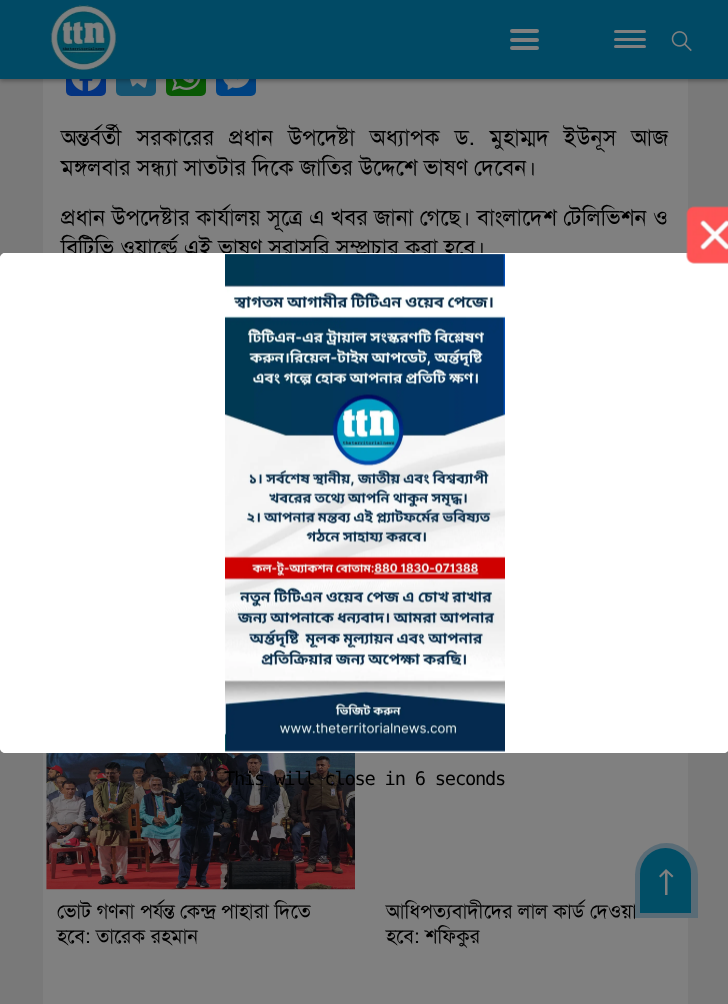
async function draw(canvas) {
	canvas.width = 728;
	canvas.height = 1004;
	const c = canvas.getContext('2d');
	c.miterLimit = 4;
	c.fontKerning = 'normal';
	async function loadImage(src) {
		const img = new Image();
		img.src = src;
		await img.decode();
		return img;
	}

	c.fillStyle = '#797979';
	c.fillRect(0, 0, 728, 1004);
	c.fillStyle = '#808080';
	c.fillRect(43, 79, 645, 174);
	c.fillStyle = '#043380';
	c.beginPath();
	c.roundRect(66, 56, 40, 40, 5);
	c.fill();
	c.drawImage(await loadImage('img3.png'), 71, 79, 30, 13);
	c.fillStyle = '#165370';
	c.beginPath();
	c.roundRect(116, 56, 40, 40, 5);
	c.fill();
	c.drawImage(await loadImage('img4.png'), 130, 79, 18, 9);
	c.fillStyle = '#095805';
	c.beginPath();
	c.roundRect(166, 56, 40, 40, 5);
	c.fill();
	c.drawImage(await loadImage('img5.png'), 171, 79, 30, 12);
	c.fillStyle = '#004280';
	c.beginPath();
	c.roundRect(216, 56, 40, 40, 5);
	c.fill();
	c.drawImage(await loadImage('img6.png'), 223, 79, 27, 11);
	c.fillStyle = '#0000004d';
	c.filter = 'blur(2px)';
	c.beginPath();
	c.rect(0, 3, 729, 78);
	c.fill();
	c.filter = 'none';
	c.fillStyle = '#014a65';
	c.fillRect(0, 0, 728, 79);
	c.drawImage(await loadImage('img1.png'), 50, 5, 67, 65);
	c.fillStyle = '#808080';
	c.beginPath();
	c.roundRect(510, 29, 29, 4, 2);
	c.fill();
	c.beginPath();
	c.roundRect(510, 38, 29, 4, 2);
	c.fill();
	c.beginPath();
	c.roundRect(510, 46, 29, 4, 2);
	c.fill();
	c.beginPath();
	c.roundRect(614, 30, 32, 3, 1.5);
	c.fill();
	c.beginPath();
	c.roundRect(614, 38, 32, 3, 1.5);
	c.fill();
	c.beginPath();
	c.roundRect(614, 45, 32, 3, 1.5);
	c.fill();
	c.drawImage(await loadImage('img2.png'), 671, 31, 21, 21);
	c.wordSpacing = '8.75px';
	c.font = '22.5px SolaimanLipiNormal';
	c.fillStyle = '#000';
	c.fillText('অন্তর্বর্তী সরকারের প্রধান উপদেষ্টা অধ্যাপক ড. মুহাম্মদ ইউনূস আজ', 61, 145);
	c.wordSpacing = '0px';
	c.fillText('মঙ্গলবার সন্ধ্যা সাতটার দিকে জাতির উদ্দেশে ভাষণ দেবেন।', 61, 175);
	c.wordSpacing = '0.25px';
	c.fillText('প্রধান উপদেষ্টার কার্যালয় সূত্রে এ খবর জানা গেছে। বাংলাদেশ টেলিভিশন ও', 61, 225);
	c.wordSpacing = '0px';
	c.fillText('বিটিভি ওয়ার্ল্ডে এই ভাষণ সরাসরি সম্প্রচার করা হবে।', 61, 255);
	c.fillStyle = '#808080';
	c.fillRect(43, 753, 645, 251);
	c.drawImage(await loadImage('img7.png'), 46, 753, 309, 137);
	c.font = '20px SolaimanLipiNormal';
	c.fillStyle = '#000';
	for (const [text, x, y] of [
		['ভোট গণনা পর্যন্ত কেন্দ্র পাহারা দিতে', 57, 918],
		['হবে: তারেক রহমান', 57, 943],
		['আধিপত্যবাদীদের লাল কার্ড দেওয়া', 386, 918],
		['হবে: শফিকুর', 386, 943],
	]) {
		c.fillText(text, x, y);
	}
	c.fillStyle = '#5a6c76';
	c.beginPath();
	c.roundRect(635, 843, 63, 75, [31.5, 31.5, 0, 0]);
	c.fill();
	c.fillStyle = '#014e66';
	c.beginPath();
	c.roundRect(640, 848, 51, 65, [25.5, 25.5, 0, 0]);
	c.fill();
	c.fillStyle = '#808080';
	c.beginPath();
	c.moveTo(666, 869);
	c.lineTo(659, 876);
	c.lineTo(660.5, 877.5);
	c.lineTo(665, 873);
	c.lineTo(665, 895);
	c.lineTo(667.5, 895);
	c.lineTo(667.5, 873);
	c.lineTo(672, 877.5);
	c.lineTo(673.5, 876);
	c.closePath();
	c.fill();
	c.fillStyle = '#fff';
	c.beginPath();
	c.roundRect(0, 253, 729, 500, 5);
	c.fill();
	c.drawImage(await loadImage('img8.png'), 225, 254, 280, 498);
	c.beginPath();
	c.roundRect(0.5, 253.5, 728, 499, 4.5);
	c.strokeStyle = '#fff';
	c.stroke();
	c.drawImage(await loadImage('img9.png'), 686, 206, 42, 58);
	c.letterSpacing = '-1.25px';
	c.font = '18.75px DejaVu Sans Mono';
	c.fillStyle = '#000';
	c.fillText('This will close in 6 seconds', 224, 785);
}

draw(document.querySelector('canvas'));
